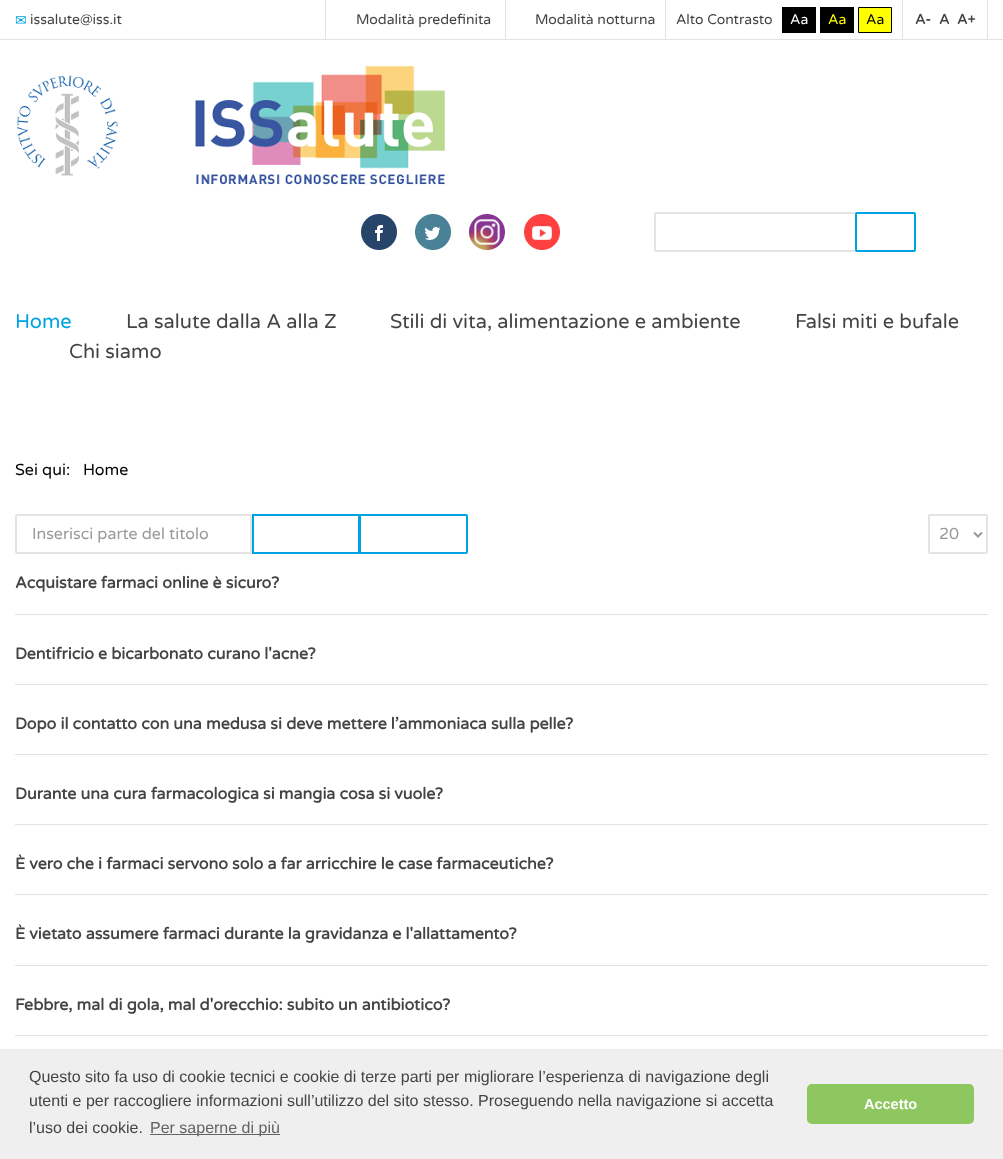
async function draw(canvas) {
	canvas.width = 1003;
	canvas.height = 1159;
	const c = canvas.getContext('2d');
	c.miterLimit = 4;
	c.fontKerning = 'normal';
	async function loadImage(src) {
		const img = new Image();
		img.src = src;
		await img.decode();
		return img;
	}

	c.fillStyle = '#fff';
	c.fillRect(0, 0, 1003, 1159);
	c.fillStyle = '#e2e2e2';
	c.fillRect(0, 39, 1003, 1);
	c.font = '14px DejaVu Sans';
	c.fillStyle = '#00a3e2';
	c.fillText('✉', 15, 25);
	c.font = '14px Varela Round';
	c.fillStyle = '#444';
	c.fillText('issalute@iss.it', 30, 24);
	c.strokeStyle = '#e2e2e2';
	c.strokeRect(325.5, -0.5, 340, 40);
	c.fillText('Modalità predefinita', 356, 24);
	c.fillStyle = '#e2e2e2';
	c.fillRect(505, 0, 1, 39);
	c.fillStyle = '#444';
	c.fillText('Modalità notturna', 535, 24);
	c.strokeRect(665.5, -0.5, 237, 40);
	c.fillText('Alto Contrasto', 676, 24);
	c.fillStyle = '#000';
	c.fillRect(782, 7, 34, 26);
	c.fillStyle = '#fff';
	c.fillText('Aa', 790, 24);
	c.fillStyle = '#000';
	c.fillRect(820, 7, 34, 26);
	c.fillStyle = '#ff0';
	c.fillText('Aa', 828, 24);
	c.beginPath();
	c.rect(858.5, 7.5, 33, 25);
	c.fill();
	c.strokeStyle = '#000';
	c.stroke();
	c.fillStyle = '#000';
	c.fillText('Aa', 866, 24);
	c.strokeStyle = '#e2e2e2';
	c.strokeRect(902.5, -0.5, 85, 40);
	c.font = 'bold 14px Varela Round';
	c.fillStyle = '#444';
	for (const [text, x, y] of [
		['A-', 915, 24],
		['A', 939, 24],
		['A+', 957, 24],
	]) {
		c.fillText(text, x, y);
	}
	c.drawImage(await loadImage('img1.png'), 16, 66, 429, 119);
	c.fillStyle = '#464a4d';
	c.fillRect(361, 214, 36, 36);
	c.drawImage(await loadImage('img2.png'), 359, 212, 40, 40);
	c.fillRect(415, 214, 36, 36);
	c.drawImage(await loadImage('img3.png'), 413, 212, 40, 40);
	c.fillRect(469, 214, 36, 36);
	c.drawImage(await loadImage('img4.png'), 467, 212, 40, 40);
	c.drawImage(await loadImage('img5.png'), 522, 212, 40, 40);
	c.beginPath();
	c.roundRect(655, 213, 201, 38, 1);
	c.strokeStyle = '#e4e4e4';
	c.lineWidth = 2;
	c.stroke();
	c.beginPath();
	c.roundRect(856, 213, 59, 38, 1);
	c.strokeStyle = '#00a3e2';
	c.stroke();
	c.font = '20px Varela Round';
	c.fillStyle = '#00a3e2';
	c.fillText('Home', 15, 328);
	c.fillStyle = '#444';
	for (const [text, x, y] of [
		['La salute dalla A alla Z', 126, 328],
		['Stili di vita, alimentazione e ambiente', 390, 328],
		['Falsi miti e bufale', 795, 328],
		['Chi siamo', 69, 358],
	]) {
		c.fillText(text, x, y);
	}
	c.font = '16px Varela Round';
	c.fillStyle = '#000';
	c.fillText('Sei qui:', 15, 475);
	c.fillText('Home', 83, 475);
	c.beginPath();
	c.roundRect(16, 515, 235, 38, 1);
	c.strokeStyle = '#e4e4e4';
	c.stroke();
	c.fillStyle = '#999';
	c.fillText('Inserisci parte del titolo', 32, 539);
	c.strokeStyle = '#00a3e2';
	c.strokeRect(253, 515, 106, 38);
	c.beginPath();
	c.roundRect(360, 515, 107, 38, [0, 1, 1, 0]);
	c.stroke();
	c.beginPath();
	c.roundRect(929, 515, 58, 38, 1);
	c.strokeStyle = '#e4e4e4';
	c.stroke();
	c.beginPath();
	c.moveTo(974, 532.5);
	c.lineTo(978, 536.5);
	c.lineTo(982, 532.5);
	c.strokeStyle = '#999';
	c.stroke();
	c.fillText('20', 939, 539);
	c.fillStyle = '#e2e2e2';
	c.fillRect(15, 614, 973, 1);
	c.font = 'bold 16px Varela Round';
	c.fillStyle = '#444';
	c.fillText('Acquistare farmaci online è sicuro?', 15, 588);
	c.fillStyle = '#e2e2e2';
	c.fillRect(15, 684, 973, 1);
	c.fillStyle = '#444';
	c.fillText('Dentifricio e bicarbonato curano l\'acne?', 15, 659);
	c.fillStyle = '#e2e2e2';
	c.fillRect(15, 754, 973, 1);
	c.fillStyle = '#444';
	c.fillText('Dopo il contatto con una medusa si deve mettere l’ammoniaca sulla pelle?', 15, 729);
	c.fillStyle = '#e2e2e2';
	c.fillRect(15, 824, 973, 1);
	c.fillStyle = '#444';
	c.fillText('Durante una cura farmacologica si mangia cosa si vuole?', 15, 799);
	c.fillStyle = '#e2e2e2';
	c.fillRect(15, 894, 973, 1);
	c.fillStyle = '#444';
	c.fillText('È vero che i farmaci servono solo a far arricchire le case farmaceutiche?', 15, 869);
	c.fillStyle = '#e2e2e2';
	c.fillRect(15, 965, 973, 1);
	c.fillStyle = '#444';
	c.fillText('È vietato assumere farmaci durante la gravidanza e l\'allattamento?', 15, 939);
	c.fillStyle = '#e2e2e2';
	c.fillRect(15, 1035, 973, 1);
	c.fillStyle = '#444';
	c.fillText('Febbre, mal di gola, mal d\'orecchio: subito un antibiotico?', 15, 1010);
	c.fillStyle = '#efefef';
	c.fillRect(0, 1049, 1003, 110);
	c.font = '16px Liberation Sans';
	c.fillStyle = '#444';
	for (const [text, x, y] of [
		['Questo sito fa uso di cookie tecnici e cookie di terze parti per migliorare l’esperienza di navigazione degli', 29, 1082],
		['utenti e per raccogliere informazioni sull’utilizzo del sito stesso. Proseguendo nella navigazione si accetta', 29, 1106],
		['l’uso dei cookie.', 29, 1133],
	]) {
		c.fillText(text, x, y);
	}
	c.fillStyle = '#636363';
	c.fillRect(150, 1134, 130, 1);
	c.fillText('Per saperne di più', 150, 1133);
	c.fillStyle = '#8ec760';
	c.beginPath();
	c.roundRect(807, 1084, 167, 40, 5);
	c.fill();
	c.font = 'bold 14.5px Liberation Sans';
	c.fillStyle = '#fff';
	c.fillText('Accetto', 864, 1109);
}

draw(document.querySelector('canvas'));
